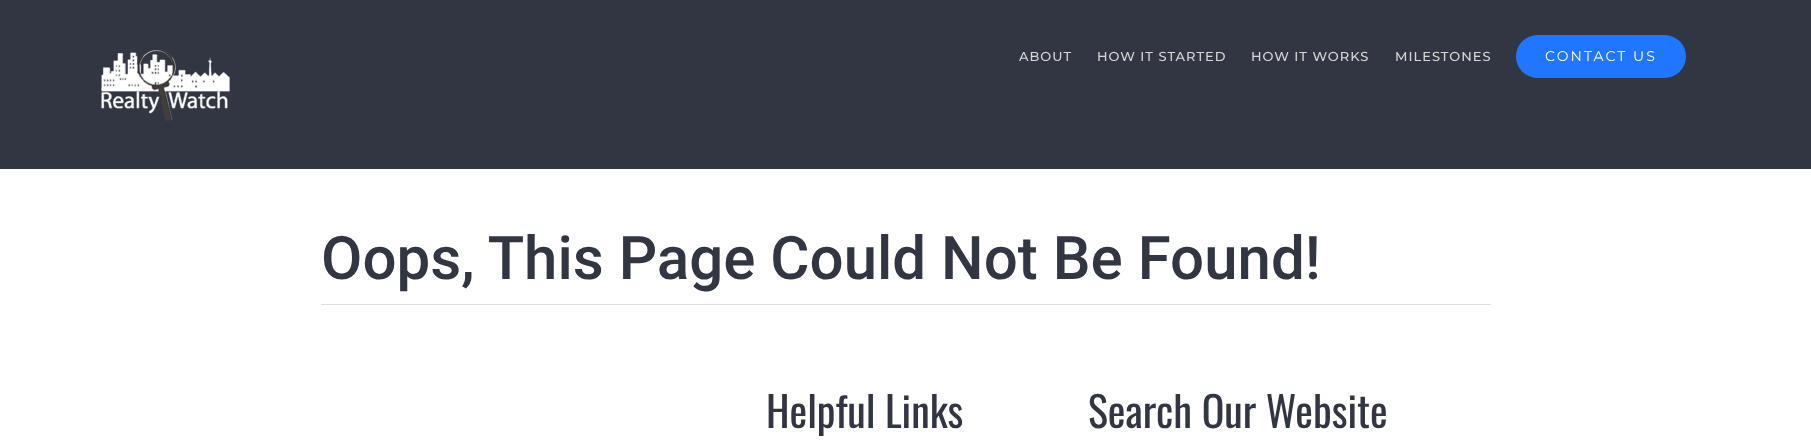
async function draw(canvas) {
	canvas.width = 1811;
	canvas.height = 440;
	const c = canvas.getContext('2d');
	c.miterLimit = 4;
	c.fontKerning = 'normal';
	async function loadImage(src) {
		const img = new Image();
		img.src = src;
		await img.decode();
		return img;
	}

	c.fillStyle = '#fff';
	c.fillRect(0, 0, 1811, 440);
	c.fillStyle = '#323643';
	c.fillRect(0, 0, 1811, 169);
	c.drawImage(await loadImage('img1.png'), 101, 49, 129, 72);
	c.letterSpacing = '1px';
	c.font = '500 13px Montserrat';
	c.fillStyle = '#d8d8d8';
	for (const [text, x, y] of [
		['ABOUT', 1019, 61],
		['HOW IT STARTED', 1097, 61],
		['HOW IT WORKS', 1251, 61],
		['MILESTONES', 1395, 61],
	]) {
		c.fillText(text, x, y);
	}
	c.fillStyle = '#2176ff';
	c.beginPath();
	c.roundRect(1516, 35, 170, 43, 21.5);
	c.fill();
	c.letterSpacing = '2px';
	c.font = '14px Montserrat';
	c.fillStyle = '#fff';
	c.fillText('CONTACT US', 1545, 61);
	c.fillStyle = '#e0dede';
	c.fillRect(321, 304, 1170, 1);
	c.letterSpacing = '0px';
	c.font = '500 60px Roboto';
	c.fillStyle = '#323643';
	c.fillText('Oops, This Page Could Not Be Found!', 321, 279);
	c.font = '42px Oswald';
	c.fillText('Helpful Links', 766, 428);
	c.fillText('Search Our Website', 1088, 428);
}

draw(document.querySelector('canvas'));
